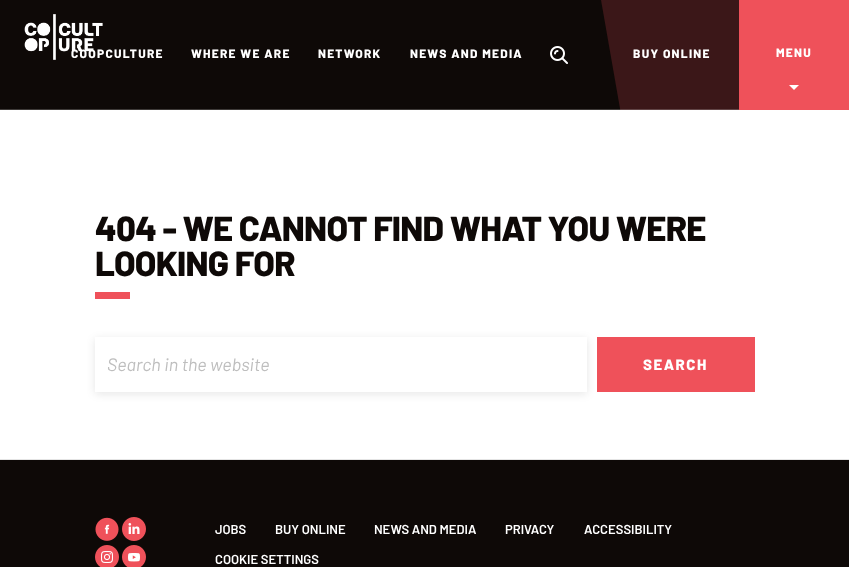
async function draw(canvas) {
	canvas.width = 849;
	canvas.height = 567;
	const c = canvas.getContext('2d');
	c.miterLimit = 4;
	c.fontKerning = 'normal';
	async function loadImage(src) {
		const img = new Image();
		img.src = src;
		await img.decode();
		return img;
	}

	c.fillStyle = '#fff';
	c.fillRect(0, 0, 849, 567);
	c.fillStyle = '#0e0907';
	c.fillRect(0, 0, 621, 110);
	c.save();
	c.beginPath();
	c.rect(601, 0, 248, 110);
	c.clip();
	c.fillStyle = '#3b1718';
	c.beginPath();
	c.moveTo(601, 0);
	c.lineTo(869, 0);
	c.lineTo(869, 120);
	c.lineTo(622, 120);
	c.closePath();
	c.fill();
	c.restore();
	c.fillStyle = '#ffffff33';
	c.fillRect(0, 109, 739, 1);
	c.letterSpacing = '1.25px';
	c.font = '800 12px Barlow';
	c.fillStyle = '#fff';
	c.fillText('COOPCULTURE', 71, 58);
	c.drawImage(await loadImage('img1.png'), 24, 14, 79, 46);
	for (const [text, x, y] of [
		['WHERE WE ARE', 191, 58],
		['NETWORK', 318, 58],
		['NEWS AND MEDIA', 410, 58],
	]) {
		c.fillText(text, x, y);
	}
	c.drawImage(await loadImage('img2.png'), 550, 46, 18, 18);
	c.fillText('BUY ONLINE', 633, 58);
	c.fillStyle = '#ef515a';
	c.fillRect(739, 0, 110, 110);
	c.fillStyle = '#fff';
	c.beginPath();
	c.moveTo(794, 90);
	c.lineTo(799, 85);
	c.lineTo(789, 85);
	c.closePath();
	c.fill();
	c.fillText('MENU', 776, 57);
	c.fillStyle = '#e4e4e4';
	c.fillRect(0, 459, 849, 1);
	c.letterSpacing = '-0.7px';
	c.font = '800 34.8px Barlow';
	c.fillStyle = '#0e0907';
	c.fillText('404 - WE CANNOT FIND WHAT YOU WERE', 95, 241);
	c.fillText('LOOKING FOR', 95, 276);
	c.fillStyle = '#ef515a';
	c.fillRect(95, 292, 35, 7);
	c.save();
	c.beginPath();
	c.moveTo(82, 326);
	c.lineTo(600, 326);
	c.lineTo(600, 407);
	c.lineTo(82, 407);
	c.closePath();
	c.moveTo(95, 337);
	c.lineTo(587, 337);
	c.lineTo(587, 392);
	c.lineTo(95, 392);
	c.closePath();
	c.clip('evenodd');
	c.fillStyle = '#0e09071a';
	c.filter = 'blur(4px)';
	c.beginPath();
	c.rect(95, 339, 492, 55);
	c.fill();
	c.filter = 'none';
	c.restore();
	c.letterSpacing = '0px';
	c.font = 'italic 18px Barlow';
	c.fillStyle = '#bebebe';
	c.fillText('Search in the website', 107, 371);
	c.fillStyle = '#ef515a';
	c.fillRect(597, 337, 158, 55);
	c.letterSpacing = '1.5px';
	c.font = '800 15px Barlow';
	c.fillStyle = '#fff';
	c.fillText('SEARCH', 643, 370);
	c.fillStyle = '#0e0907';
	c.fillRect(0, 460, 849, 107);
	c.drawImage(await loadImage('img3.png'), 95, 517, 24, 24);
	c.drawImage(await loadImage('img4.png'), 122, 517, 24, 24);
	c.drawImage(await loadImage('img5.png'), 95, 545, 24, 22);
	c.drawImage(await loadImage('img6.png'), 122, 545, 24, 22);
	c.letterSpacing = '0px';
	c.font = '600 13px Barlow';
	c.fillStyle = '#fff';
	for (const [text, x, y] of [
		['JOBS', 215, 534],
		['BUY ONLINE', 275, 534],
		['NEWS AND MEDIA', 374, 534],
		['PRIVACY', 505, 534],
		['ACCESSIBILITY', 584, 534],
		['COOKIE SETTINGS', 215, 564],
	]) {
		c.fillText(text, x, y);
	}
}

draw(document.querySelector('canvas'));
